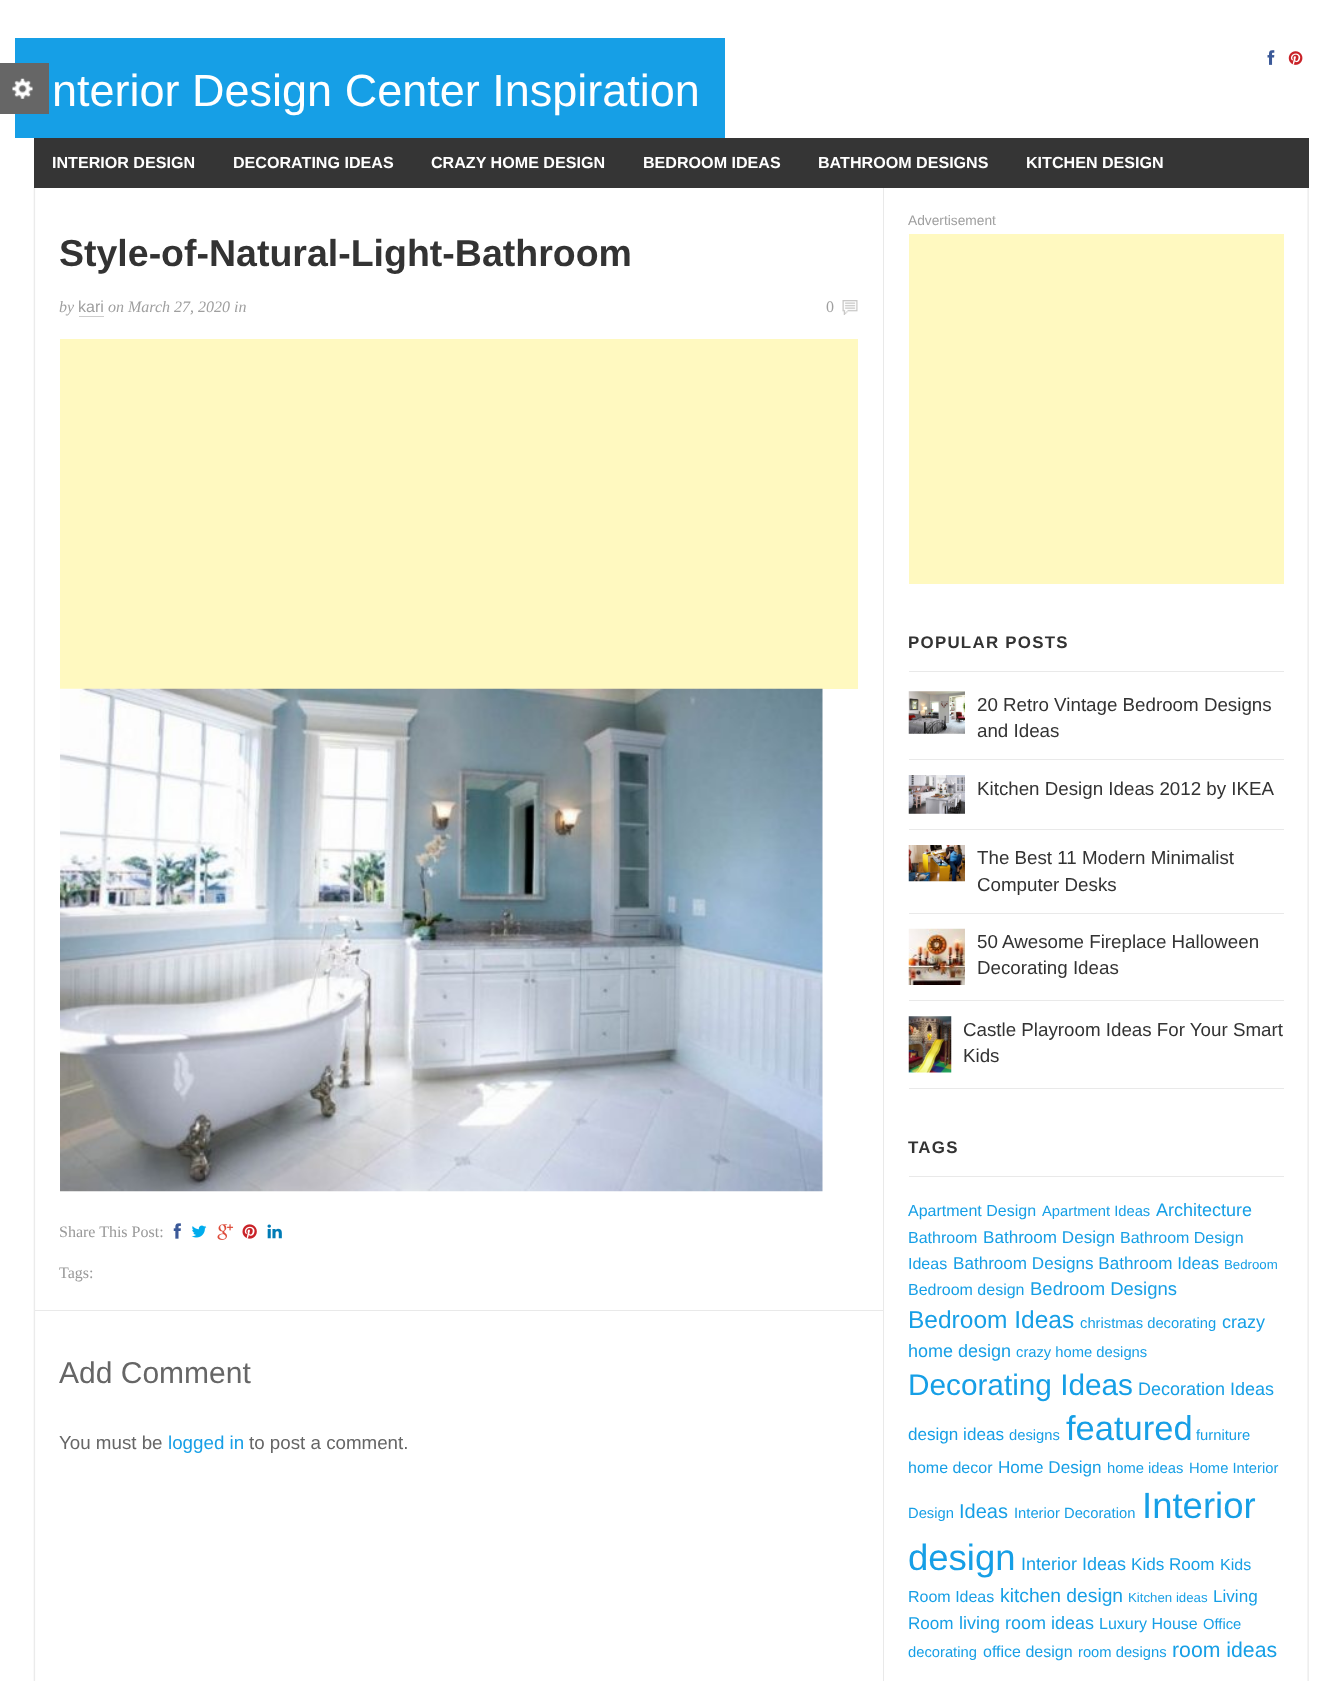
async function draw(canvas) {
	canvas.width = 1341;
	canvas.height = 1681;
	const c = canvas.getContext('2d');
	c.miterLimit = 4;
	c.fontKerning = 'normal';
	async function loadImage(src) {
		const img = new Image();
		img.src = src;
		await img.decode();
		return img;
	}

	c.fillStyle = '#fff';
	c.fillRect(0, 0, 1341, 1681);
	c.fillStyle = '#169fe6';
	c.fillRect(15, 38, 710, 100);
	c.fillStyle = '#666';
	c.fillRect(0, 63, 49, 51);
	c.drawImage(await loadImage('img1.png'), 12, 78, 21, 21);
	c.drawImage(await loadImage('img2.png'), 1267, 50, 8, 15);
	c.drawImage(await loadImage('img3.png'), 1288, 51, 15, 14);
	c.font = '45px Liberation Sans';
	c.fillStyle = '#fff';
	c.fillText('nterior Design Center Inspiration', 52, 106);
	c.drawImage(await loadImage('img4.png'), 33, 187, 1276, 1494);
	c.fillStyle = '#353535';
	c.fillRect(34, 138, 1275, 50);
	c.font = 'bold 16.1px Liberation Sans';
	c.fillStyle = '#fff';
	for (const [text, x, y] of [
		['INTERIOR DESIGN', 52, 168],
		['DECORATING IDEAS', 233, 168],
		['CRAZY HOME DESIGN', 431, 168],
		['BEDROOM IDEAS', 643, 168],
		['BATHROOM DESIGNS', 818, 168],
		['KITCHEN DESIGN', 1026, 168],
	]) {
		c.fillText(text, x, y);
	}
	c.fillStyle = '#e9e9e9';
	c.fillRect(883, 188, 1, 1493);
	c.fillRect(35, 1310, 848, 1);
	c.font = 'bold 37.5px Liberation Sans';
	c.fillStyle = '#333';
	c.fillText('Style-of-Natural-Light-Bathroom', 59, 266);
	c.font = 'italic 16px Liberation Serif';
	c.fillStyle = '#9f9f9f';
	c.fillText('by', 59, 312);
	c.font = '16px Liberation Sans';
	c.fillText('kari', 78, 312);
	c.fillStyle = '#ccc';
	c.fillRect(79, 316, 25, 1);
	c.font = 'italic 16px Liberation Serif';
	c.fillStyle = '#9f9f9f';
	c.fillText('on March 27, 2020 in', 108, 312);
	c.font = '16px Liberation Serif';
	c.fillText('0', 826, 312);
	c.drawImage(await loadImage('img5.png'), 842, 300, 16, 15);
	c.fillStyle = '#fff9c0';
	c.fillRect(60, 339, 798, 350);
	c.drawImage(await loadImage('img6.png'), 60, 688, 763, 504);
	c.fillStyle = '#999';
	c.fillText('Share This Post:', 59, 1237);
	c.drawImage(await loadImage('img7.png'), 173, 1223, 8, 16);
	c.drawImage(await loadImage('img8.png'), 191, 1225, 16, 13);
	c.drawImage(await loadImage('img9.png'), 217, 1224, 17, 16);
	c.drawImage(await loadImage('img10.png'), 242, 1224, 15, 15);
	c.drawImage(await loadImage('img11.png'), 267, 1224, 15, 15);
	c.fillText('Tags:', 59, 1278);
	c.font = '30px Liberation Sans';
	c.fillStyle = '#666';
	c.fillText('Add Comment', 59, 1383);
	c.font = '18.75px Liberation Sans';
	c.fillText('You must be', 59, 1449);
	c.fillStyle = '#169fe6';
	c.fillText('logged in', 168, 1449);
	c.fillStyle = '#666';
	c.fillText('to post a comment.', 249, 1449);
	c.font = '13.75px Liberation Sans';
	c.fillStyle = '#9f9f9f';
	c.fillText('Advertisement', 908, 225);
	c.fillStyle = '#fff9c0';
	c.fillRect(909, 234, 375, 350);
	c.fillStyle = '#e9e9e9';
	c.fillRect(909, 671, 375, 1);
	c.letterSpacing = '1.25px';
	c.font = 'bold 16.9px Liberation Sans';
	c.fillStyle = '#333';
	c.fillText('POPULAR POSTS', 908, 648);
	c.fillStyle = '#e9e9e9';
	c.fillRect(909, 759, 375, 1);
	c.drawImage(await loadImage('img12.png'), 908, 691, 57, 43);
	c.letterSpacing = '0px';
	c.font = '18.75px Liberation Sans';
	c.fillStyle = '#333';
	c.fillText('20 Retro Vintage Bedroom Designs', 977, 711);
	c.fillText('and Ideas', 977, 737);
	c.fillStyle = '#e9e9e9';
	c.fillRect(909, 829, 375, 1);
	c.drawImage(await loadImage('img13.png'), 908, 775, 57, 39);
	c.fillStyle = '#333';
	c.fillText('Kitchen Design Ideas 2012 by IKEA', 977, 795);
	c.fillStyle = '#e9e9e9';
	c.fillRect(909, 913, 375, 1);
	c.drawImage(await loadImage('img14.png'), 908, 845, 57, 37);
	c.fillStyle = '#333';
	c.fillText('The Best 11 Modern Minimalist', 977, 864);
	c.fillText('Computer Desks', 977, 891);
	c.fillStyle = '#e9e9e9';
	c.fillRect(909, 1000, 375, 1);
	c.drawImage(await loadImage('img15.png'), 908, 928, 57, 57);
	c.fillStyle = '#333';
	c.fillText('50 Awesome Fireplace Halloween', 977, 948);
	c.fillText('Decorating Ideas', 977, 974);
	c.fillStyle = '#e9e9e9';
	c.fillRect(909, 1088, 375, 1);
	c.drawImage(await loadImage('img16.png'), 908, 1016, 44, 57);
	c.fillStyle = '#333';
	c.fillText('Castle Playroom Ideas For Your Smart', 963, 1036);
	c.fillText('Kids', 963, 1062);
	c.fillStyle = '#e9e9e9';
	c.fillRect(909, 1176, 375, 1);
	c.letterSpacing = '1.25px';
	c.font = 'bold 16.9px Liberation Sans';
	c.fillStyle = '#333';
	c.fillText('TAGS', 908, 1153);
	c.letterSpacing = '0px';
	c.font = '16px Liberation Sans';
	c.fillStyle = '#169fe6';
	c.fillText('Apartment Design', 908, 1216);
	c.font = '14.75px Liberation Sans';
	c.fillText('Apartment Ideas', 1042, 1216);
	c.font = '18px Liberation Sans';
	c.fillText('Architecture', 1156, 1216);
	c.font = '16px Liberation Sans';
	c.fillText('Bathroom', 908, 1243);
	c.font = '17.1px Liberation Sans';
	c.fillText('Bathroom Design', 983, 1243);
	c.font = '16px Liberation Sans';
	c.fillText('Bathroom Design', 1120, 1243);
	c.fillText('Ideas', 908, 1269);
	c.font = '17.1px Liberation Sans';
	c.fillText('Bathroom Designs Bathroom Ideas', 953, 1269);
	c.font = '13.25px Liberation Sans';
	c.fillText('Bedroom', 1224, 1269);
	c.font = '16px Liberation Sans';
	c.fillText('Bedroom design', 908, 1295);
	c.font = '18.5px Liberation Sans';
	c.fillText('Bedroom Designs', 1030, 1295);
	c.font = '24.5px Liberation Sans';
	c.fillText('Bedroom Ideas', 908, 1328);
	c.font = '14.75px Liberation Sans';
	c.fillText('christmas decorating', 1080, 1328);
	c.font = '18px Liberation Sans';
	c.fillText('crazy', 1222, 1328);
	c.fillText('home design', 908, 1357);
	c.font = '14.75px Liberation Sans';
	c.fillText('crazy home designs', 1016, 1357);
	c.font = '29.75px Liberation Sans';
	c.fillText('Decorating Ideas', 908, 1395);
	c.font = '18px Liberation Sans';
	c.fillText('Decoration Ideas', 1138, 1395);
	c.font = '17.1px Liberation Sans';
	c.fillText('design ideas', 908, 1440);
	c.font = '14.75px Liberation Sans';
	c.fillText('designs', 1009, 1440);
	c.font = '34.5px Liberation Sans';
	c.fillText('featured', 1066, 1440);
	c.font = '14.75px Liberation Sans';
	c.fillText('furniture', 1196, 1440);
	c.font = '16px Liberation Sans';
	c.fillText('home decor', 908, 1473);
	c.font = '17.1px Liberation Sans';
	c.fillText('Home Design', 998, 1473);
	c.font = '14.75px Liberation Sans';
	for (const [text, x, y] of [
		['home ideas', 1107, 1473],
		['Home Interior', 1189, 1473],
		['Design', 908, 1518],
	]) {
		c.fillText(text, x, y);
	}
	c.font = '20px Liberation Sans';
	c.fillText('Ideas', 959, 1518);
	c.font = '14.75px Liberation Sans';
	c.fillText('Interior Decoration', 1014, 1518);
	c.font = '36.5px Liberation Sans';
	c.fillText('Interior', 1142, 1518);
	c.fillText('design', 908, 1570);
	c.font = '18px Liberation Sans';
	c.fillText('Interior Ideas', 1021, 1570);
	c.font = '17.1px Liberation Sans';
	c.fillText('Kids Room', 1131, 1570);
	c.font = '16px Liberation Sans';
	c.fillText('Kids', 1220, 1570);
	c.fillText('Room Ideas', 908, 1602);
	c.font = '19.25px Liberation Sans';
	c.fillText('kitchen design', 1000, 1602);
	c.font = '13.25px Liberation Sans';
	c.fillText('Kitchen ideas', 1128, 1602);
	c.font = '17.1px Liberation Sans';
	c.fillText('Living', 1213, 1602);
	c.fillText('Room', 908, 1629);
	c.font = '18px Liberation Sans';
	c.fillText('living room ideas', 959, 1629);
	c.font = '16px Liberation Sans';
	c.fillText('Luxury House', 1099, 1629);
	c.font = '14.75px Liberation Sans';
	c.fillText('Office', 1203, 1629);
	c.fillText('decorating', 908, 1657);
	c.font = '16px Liberation Sans';
	c.fillText('office design', 983, 1657);
	c.font = '14.75px Liberation Sans';
	c.fillText('room designs', 1078, 1657);
	c.font = '21.25px Liberation Sans';
	c.fillText('room ideas', 1172, 1657);
}

draw(document.querySelector('canvas'));
